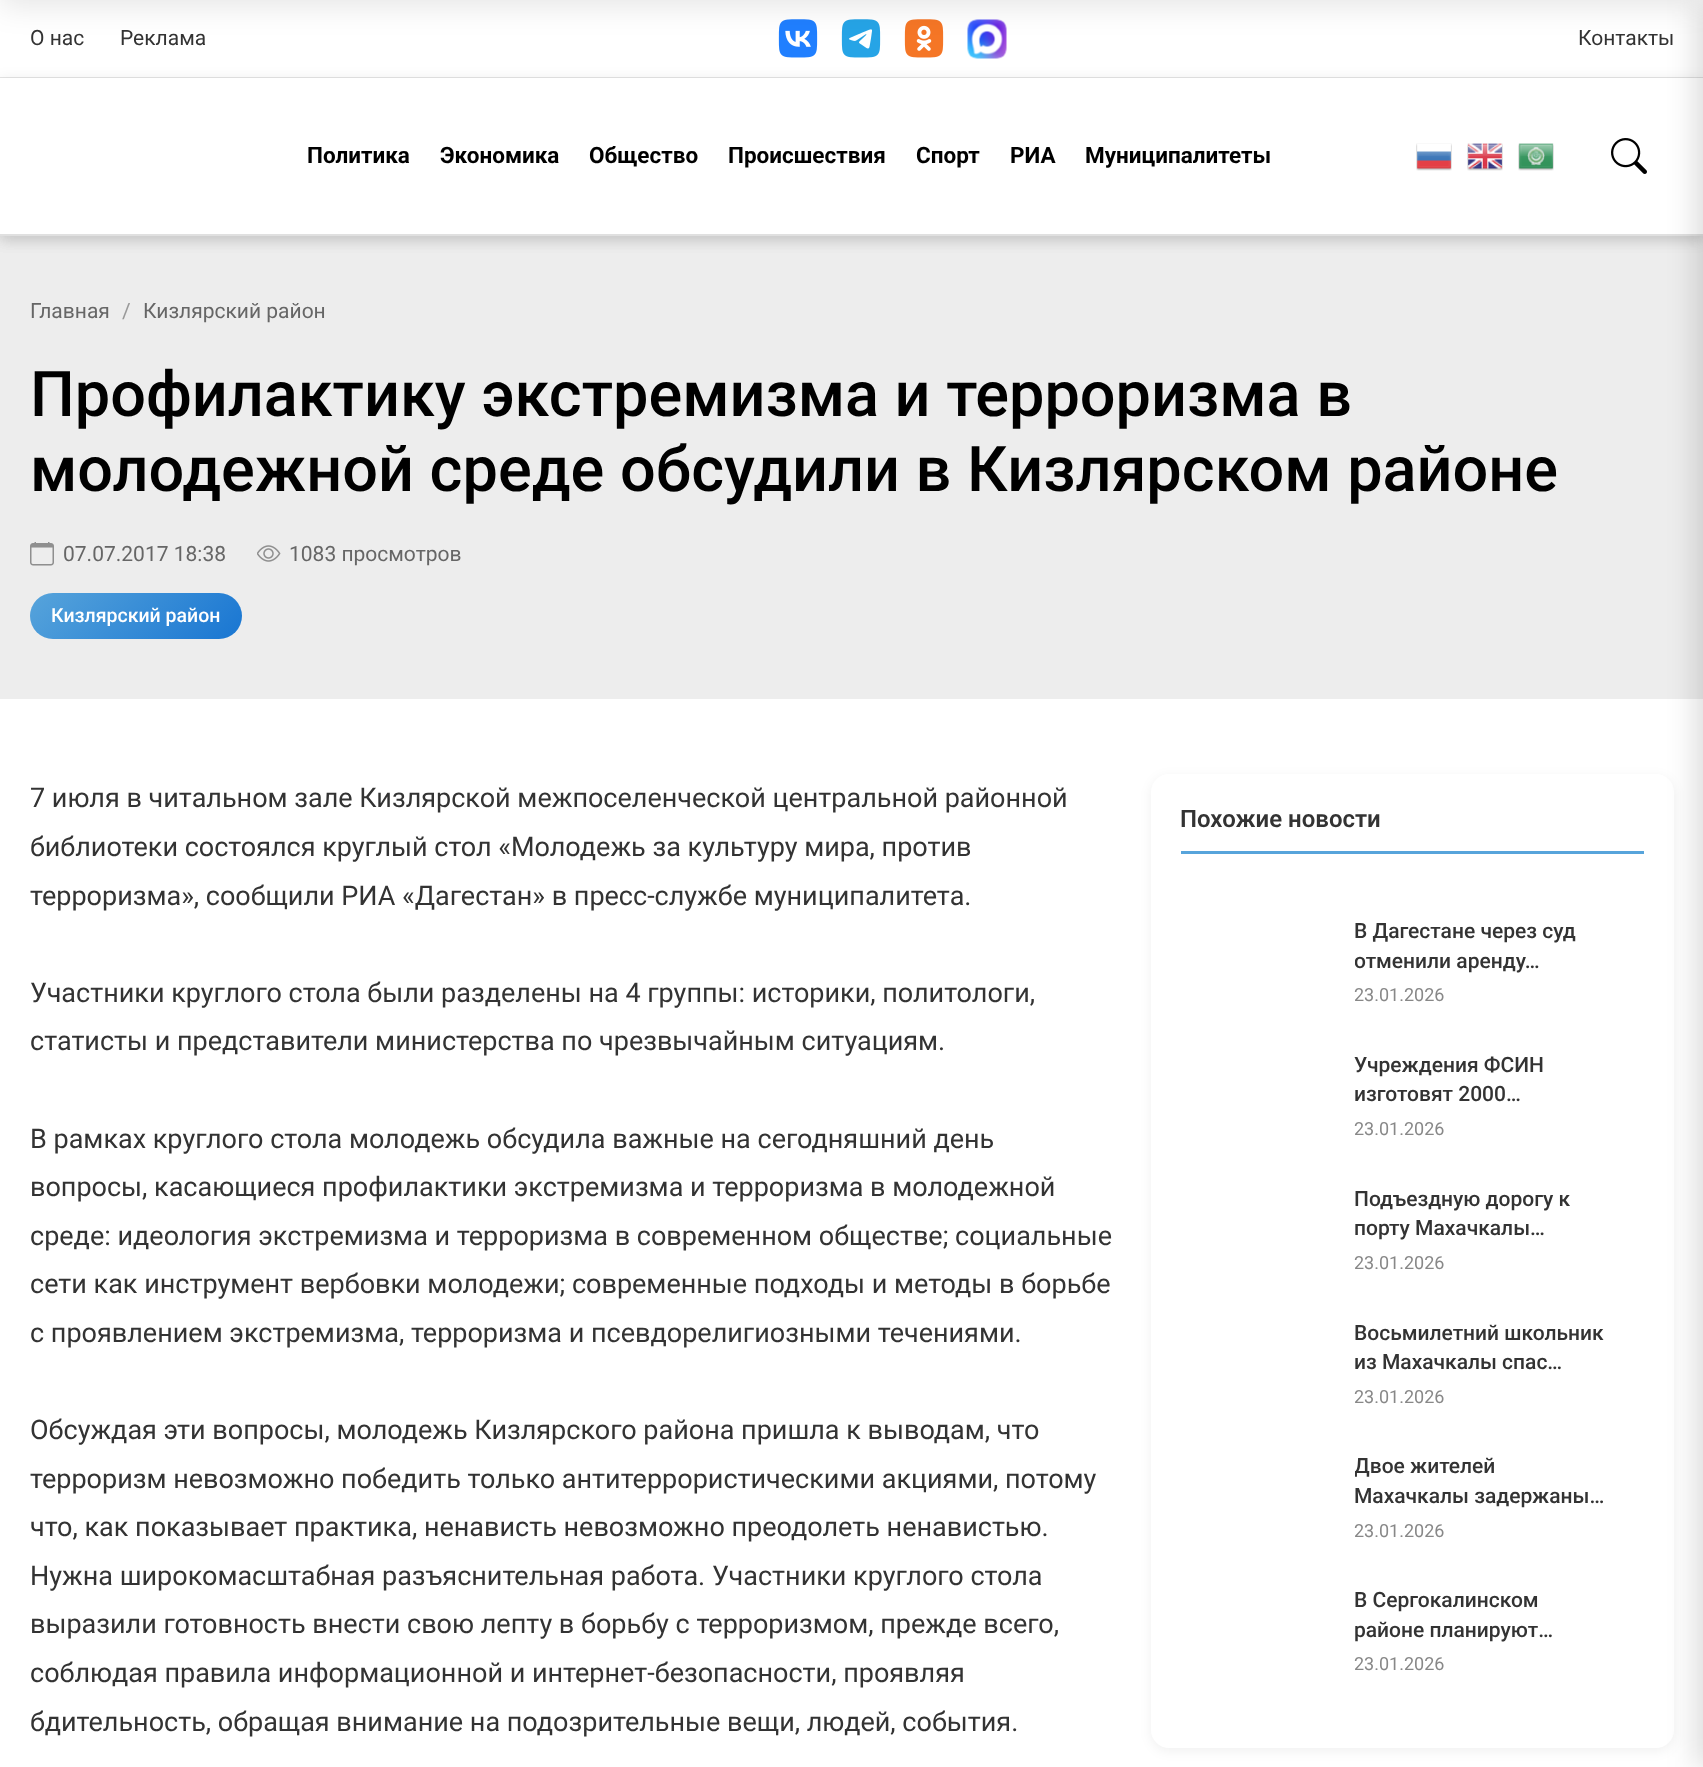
async function draw(canvas) {
	canvas.width = 1703;
	canvas.height = 1767;
	const c = canvas.getContext('2d');
	c.miterLimit = 4;
	c.fontKerning = 'normal';
	async function loadImage(src) {
		const img = new Image();
		img.src = src;
		await img.decode();
		return img;
	}
	let gradient;

	c.fillStyle = '#ededed';
	c.fillRect(0, 0, 1703, 1767);
	c.fillStyle = '#0000001a';
	c.filter = 'blur(7.5px)';
	c.beginPath();
	c.rect(0, 3, 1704, 236);
	c.fill();
	c.filter = 'none';
	c.fillStyle = '#fff';
	c.fillRect(0, 0, 1703, 77);
	c.drawImage(await loadImage('img1.png'), 778, 19, 40, 39);
	c.drawImage(await loadImage('img2.png'), 841, 19, 40, 39);
	c.drawImage(await loadImage('img3.png'), 904, 19, 40, 39);
	c.drawImage(await loadImage('img4.png'), 967, 19, 40, 40);
	c.fillStyle = '#0000001a';
	c.filter = 'blur(15px)';
	c.beginPath();
	c.rect(0, -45, 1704, 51);
	c.fill();
	c.filter = 'none';
	c.fillStyle = '#e5e5e5';
	c.fillRect(0, 77, 1703, 1);
	c.font = '21px Roboto';
	c.fillStyle = '#333';
	for (const [text, x, y] of [
		['О нас', 30, 45],
		['Реклама', 120, 45],
		['Контакты', 1578, 45],
	]) {
		c.fillText(text, x, y);
	}
	c.fillStyle = '#0000001a';
	c.filter = 'blur(7.5px)';
	c.beginPath();
	c.rect(0, 81, 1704, 158);
	c.fill();
	c.filter = 'none';
	for (const [x, y, w, h, color] of [
		[0, 78, 1703, 156, '#fff'],
		[0, 234, 1703, 2, '#e0e0e0'],
		[0, 699, 1703, 1068, '#fff'],
	]) {
		c.fillStyle = color;
		c.fillRect(x, y, w, h);
	}
	c.fillStyle = '#0000000f';
	c.filter = 'blur(6px)';
	c.beginPath();
	c.roundRect(1151, 777, 523, 974, 18);
	c.fill();
	c.filter = 'none';
	c.fillStyle = '#fff';
	c.beginPath();
	c.roundRect(1151, 774, 523, 974, 18);
	c.fill();
	c.fillStyle = '#00000026';
	c.filter = 'blur(15px)';
	c.beginPath();
	c.rect(1697, 0, 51, 1767);
	c.fill();
	c.filter = 'none';
	c.font = 'bold 22.5px Roboto';
	c.fillStyle = '#000';
	for (const [text, x, y] of [
		['Политика', 307, 163],
		['Экономика', 440, 163],
		['Общество', 589, 163],
		['Происшествия', 728, 163],
		['Спорт', 916, 163],
		['РИА', 1010, 163],
		['Муниципалитеты', 1085, 163],
	]) {
		c.fillText(text, x, y);
	}
	c.drawImage(await loadImage('img5.png'), 1416, 143, 36, 28);
	c.drawImage(await loadImage('img6.png'), 1467, 143, 36, 28);
	c.drawImage(await loadImage('img7.png'), 1518, 143, 36, 28);
	c.drawImage(await loadImage('img8.png'), 1611, 138, 36, 36);
	c.font = '21px Roboto';
	c.fillStyle = '#666';
	c.fillText('Главная', 30, 318);
	c.fillStyle = '#999';
	c.fillText('/', 122, 318);
	c.fillStyle = '#666';
	c.fillText('Кизлярский район', 143, 318);
	c.font = '500 63px Roboto';
	c.fillStyle = '#000';
	c.fillText('Профилактику экстремизма и терроризма в', 30, 416);
	c.fillText('молодежной среде обсудили в Кизлярском районе', 30, 491);
	c.drawImage(await loadImage('img9.png'), 30, 542, 24, 24);
	c.font = '21px Roboto';
	c.fillStyle = '#666';
	c.fillText('07.07.2017 18:38', 63, 561);
	c.drawImage(await loadImage('img10.png'), 257, 545, 24, 17);
	c.fillText('1083 просмотров', 289, 561);
	gradient = c.createLinearGradient(71, 551, 200, 680);
	gradient.addColorStop(0, '#57a4db');
	gradient.addColorStop(1, '#1976d2');
	c.fillStyle = gradient;
	c.beginPath();
	c.roundRect(30, 593, 212, 46, 23);
	c.fill();
	c.font = '500 19.5px Roboto';
	c.fillStyle = '#fff';
	c.fillText('Кизлярский район', 51, 622);
	c.font = '27px Roboto';
	c.fillStyle = '#333';
	for (const [text, x, y] of [
		['7 июля в читальном зале Кизлярской межпоселенческой центральной районной', 30, 807],
		['библиотеки состоялся круглый стол «Молодежь за культуру мира, против', 30, 856],
		['терроризма», сообщили РИА «Дагестан» в пресс-службе муниципалитета.', 30, 905],
		['Участники круглого стола были разделены на 4 группы: историки, политологи,', 30, 1002],
		['статисты и представители министерства по чрезвычайным ситуациям.', 30, 1050],
		['В рамках круглого стола молодежь обсудила важные на сегодняшний день', 30, 1148],
		['вопросы, касающиеся профилактики экстремизма и терроризма в молодежной', 30, 1196],
		['среде: идеология экстремизма и терроризма в современном обществе; социальные', 30, 1245],
		['сети как инструмент вербовки молодежи; современные подходы и методы в борьбе', 30, 1293],
		['с проявлением экстремизма, терроризма и псевдорелигиозными течениями.', 30, 1342],
		['Обсуждая эти вопросы, молодежь Кизлярского района пришла к выводам, что', 30, 1439],
		['терроризм невозможно победить только антитеррористическими акциями, потому', 30, 1488],
		['что, как показывает практика, ненависть невозможно преодолеть ненавистью.', 30, 1536],
		['Нужна широкомасштабная разъяснительная работа. Участники круглого стола', 30, 1585],
		['выразили готовность внести свою лепту в борьбу с терроризмом, прежде всего,', 30, 1633],
		['соблюдая правила информационной и интернет-безопасности, проявляя', 30, 1682],
		['бдительность, обращая внимание на подозрительные вещи, людей, события.', 30, 1731],
	]) {
		c.fillText(text, x, y);
	}
	c.fillStyle = '#57a4db';
	c.fillRect(1181, 851, 463, 3);
	c.font = '600 24px Roboto';
	c.fillStyle = '#333';
	c.fillText('Похожие новости', 1180, 827);
	c.font = '500 21px Roboto';
	c.fillText('В Дагестане через суд', 1354, 938);
	c.save();
	c.beginPath();
	c.rect(1355, 917, 253, 60);
	c.clip();
	c.fillText('отменили аренду…', 1354, 968);
	c.restore();
	c.font = '18px Roboto';
	c.fillStyle = '#888';
	c.fillText('23.01.2026', 1354, 1001);
	c.font = '500 21px Roboto';
	c.fillStyle = '#333';
	c.fillText('Учреждения ФСИН', 1354, 1072);
	c.fillText('изготовят 2000…', 1354, 1101);
	c.font = '18px Roboto';
	c.fillStyle = '#888';
	c.fillText('23.01.2026', 1354, 1135);
	c.font = '500 21px Roboto';
	c.fillStyle = '#333';
	c.fillText('Подъездную дорогу к', 1354, 1206);
	c.fillText('порту Махачкалы…', 1354, 1235);
	c.font = '18px Roboto';
	c.fillStyle = '#888';
	c.fillText('23.01.2026', 1354, 1269);
	c.font = '500 21px Roboto';
	c.fillStyle = '#333';
	c.fillText('Восьмилетний школьник', 1354, 1340);
	c.fillText('из Махачкалы спас…', 1354, 1369);
	c.font = '18px Roboto';
	c.fillStyle = '#888';
	c.fillText('23.01.2026', 1354, 1403);
	c.save();
	c.beginPath();
	c.rect(1355, 1452, 253, 59);
	c.clip();
	c.font = '500 21px Roboto';
	c.fillStyle = '#333';
	c.fillText('Двое жителей', 1354, 1473);
	c.restore();
	c.font = '500 21px Roboto';
	c.fillStyle = '#333';
	c.fillText('Махачкалы задержаны…', 1354, 1503);
	c.font = '18px Roboto';
	c.fillStyle = '#888';
	c.fillText('23.01.2026', 1354, 1537);
	c.font = '500 21px Roboto';
	c.fillStyle = '#333';
	c.fillText('В Сергокалинском', 1354, 1607);
	c.fillText('районе планируют…', 1354, 1637);
	c.font = '18px Roboto';
	c.fillStyle = '#888';
	c.fillText('23.01.2026', 1354, 1670);
}

draw(document.querySelector('canvas'));
